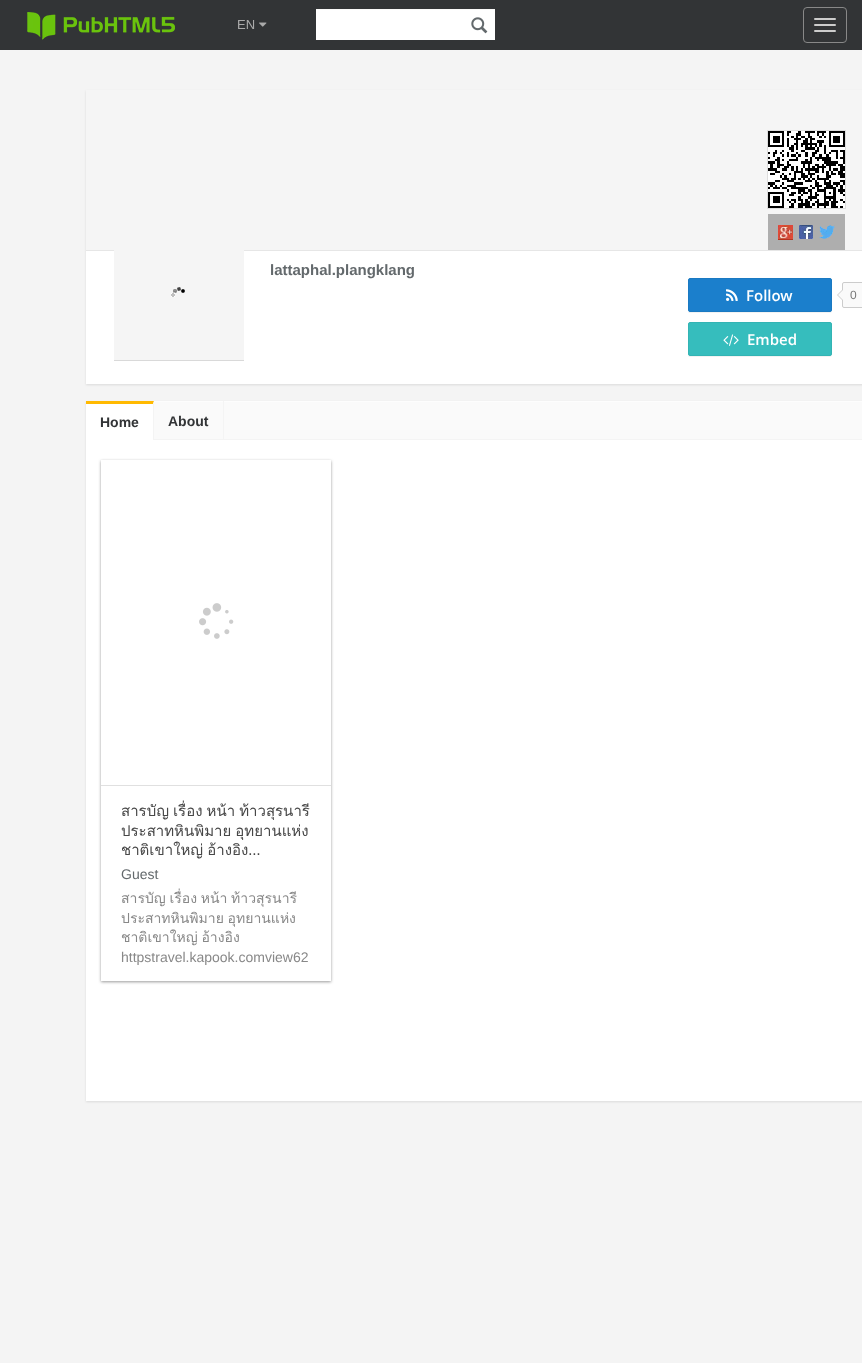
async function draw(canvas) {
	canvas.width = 862;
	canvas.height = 1363;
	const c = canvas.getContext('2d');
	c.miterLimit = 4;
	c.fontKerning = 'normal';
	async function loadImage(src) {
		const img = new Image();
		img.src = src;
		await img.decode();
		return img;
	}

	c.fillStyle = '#f4f4f4';
	c.fillRect(0, 0, 862, 1363);
	c.fillStyle = '#323436';
	c.fillRect(0, 0, 862, 50);
	c.drawImage(await loadImage('img1.png'), 27, 12, 148, 28);
	c.font = '13px Liberation Sans';
	c.fillStyle = '#aaa';
	c.fillText('EN', 237, 29);
	c.drawImage(await loadImage('img2.png'), 259, 22, 8, 5);
	c.fillStyle = '#fff';
	c.fillRect(316, 10, 179, 30);
	c.fillStyle = '#f9f9f9';
	c.fillRect(316, 9, 179, 1);
	c.drawImage(await loadImage('img3.png'), 471, 17, 17, 17);
	c.beginPath();
	c.roundRect(803.5, 7.5, 43, 35, 3.5);
	c.strokeStyle = '#888';
	c.stroke();
	c.fillStyle = '#ccc';
	c.beginPath();
	c.roundRect(814, 18, 22, 2, 1);
	c.fill();
	c.beginPath();
	c.roundRect(814, 24, 22, 2, 1);
	c.fill();
	c.beginPath();
	c.roundRect(814, 30, 22, 2, 1);
	c.fill();
	c.fillStyle = '#0000001a';
	c.filter = 'blur(1px)';
	c.beginPath();
	c.rect(86, 91, 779, 294);
	c.fill();
	c.filter = 'none';
	c.fillStyle = '#f5f5f5';
	c.fillRect(86, 90, 776, 160);
	c.strokeStyle = '#ddd';
	c.strokeRect(767.5, 130.5, 78, 78);
	c.drawImage(await loadImage('img4.png'), 768, 131, 77, 77);
	for (const [x, y, w, h, color] of [
		[86, 251, 776, 133, '#fff'],
		[86, 250, 776, 1, '#e6e6e6'],
		[768, 214, 77, 36, '#aeaeae'],
	]) {
		c.fillStyle = color;
		c.fillRect(x, y, w, h);
	}
	c.drawImage(await loadImage('img5.png'), 778, 225, 15, 15);
	c.drawImage(await loadImage('img6.png'), 799, 225, 14, 14);
	c.drawImage(await loadImage('img7.png'), 819, 225, 16, 14);
	c.fillStyle = '#00000026';
	c.filter = 'blur(0.5px)';
	c.beginPath();
	c.rect(114, 231, 130, 130);
	c.fill();
	c.filter = 'none';
	c.fillStyle = '#f5f5f5';
	c.fillRect(114, 230, 130, 130);
	c.drawImage(await loadImage('img8.png'), 171, 287, 14, 10);
	c.font = 'bold 15px Liberation Sans';
	c.fillStyle = '#63696c';
	c.fillText('lattaphal.plangklang', 270, 275);
	c.fillStyle = '#f2f2f2';
	c.beginPath();
	c.moveTo(688, 310);
	c.bezierCurveTo(688, 311, 688, 312, 689, 313);
	c.lineTo(830, 313);
	c.lineTo(832, 312);
	c.lineTo(832, 310);
	c.bezierCurveTo(832, 311, 831, 312, 830, 312);
	c.lineTo(690, 312);
	c.bezierCurveTo(689, 312, 688, 311, 688, 310);
	c.closePath();
	c.fill();
	c.fillStyle = '#1b7fcc';
	c.beginPath();
	c.roundRect(688.5, 278.5, 143, 33, 1.5);
	c.fill();
	c.strokeStyle = '#1a79c2';
	c.stroke();
	c.drawImage(await loadImage('img9.png'), 726, 289, 12, 12);
	c.font = '600 15px Open Sans';
	c.fillStyle = '#fff';
	c.fillText('Follow', 746, 301);
	c.fillStyle = '#fafafa';
	c.beginPath();
	c.roundRect(842.5, 282.5, 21, 25, 1.5);
	c.fill();
	c.strokeStyle = '#ccc';
	c.stroke();
	c.fillStyle = '#ccc';
	c.beginPath();
	c.moveTo(843, 289);
	c.lineTo(843, 301);
	c.lineTo(837, 295);
	c.closePath();
	c.fill();
	c.fillStyle = '#fafafa';
	c.beginPath();
	c.moveTo(843, 290);
	c.lineTo(843, 300);
	c.lineTo(838, 295);
	c.closePath();
	c.fill();
	c.font = '12px Liberation Sans';
	c.fillStyle = '#777';
	c.fillText('0', 850, 299);
	c.fillStyle = '#f2f2f2';
	c.beginPath();
	c.moveTo(688, 354);
	c.bezierCurveTo(688, 355, 688, 356, 689, 357);
	c.lineTo(830, 357);
	c.lineTo(832, 356);
	c.lineTo(832, 354);
	c.bezierCurveTo(832, 355, 831, 356, 830, 356);
	c.lineTo(690, 356);
	c.bezierCurveTo(689, 356, 688, 355, 688, 354);
	c.closePath();
	c.fill();
	c.fillStyle = '#36bdbd';
	c.beginPath();
	c.roundRect(688.5, 322.5, 143, 33, 1.5);
	c.fill();
	c.strokeStyle = '#33b4b4';
	c.stroke();
	c.drawImage(await loadImage('img10.png'), 723, 334, 16, 12);
	c.font = '600 15px Open Sans';
	c.fillStyle = '#fff';
	c.fillText('Embed', 747, 345);
	c.fillStyle = '#0000001a';
	c.filter = 'blur(1px)';
	c.beginPath();
	c.rect(86, 402, 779, 700);
	c.fill();
	c.filter = 'none';
	for (const [x, y, w, h, color] of [
		[86, 440, 776, 661, '#fff'],
		[154, 439, 708, 1, '#f4f4f4'],
		[154, 402, 708, 37, '#fafafa'],
		[154, 401, 708, 1, '#fdfdfd'],
		[86, 401, 68, 39, '#fff'],
	]) {
		c.fillStyle = color;
		c.fillRect(x, y, w, h);
	}
	c.fillStyle = '#ffb901';
	c.beginPath();
	c.moveTo(86, 401);
	c.lineTo(154, 401);
	c.lineTo(153, 404);
	c.lineTo(86, 404);
	c.closePath();
	c.fill();
	c.fillStyle = '#f4f4f4';
	c.beginPath();
	c.moveTo(154, 401);
	c.lineTo(154, 440);
	c.lineTo(153, 440);
	c.lineTo(153, 404);
	c.closePath();
	c.fill();
	c.font = 'bold 14px Liberation Sans';
	c.fillStyle = '#323436';
	c.fillText('Home', 100, 427);
	c.fillStyle = '#f4f4f4';
	c.fillRect(223, 401, 1, 38);
	c.fillStyle = '#323436';
	c.fillText('About', 168, 426);
	c.save();
	c.beginPath();
	c.moveTo(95, 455);
	c.lineTo(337, 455);
	c.lineTo(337, 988);
	c.lineTo(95, 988);
	c.closePath();
	c.moveTo(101, 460);
	c.lineTo(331, 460);
	c.lineTo(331, 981);
	c.lineTo(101, 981);
	c.closePath();
	c.clip('evenodd');
	c.fillStyle = '#00000066';
	c.filter = 'blur(1.5px)';
	c.beginPath();
	c.rect(101, 461, 230, 521);
	c.fill();
	c.filter = 'none';
	c.restore();
	c.fillStyle = '#e0e0e0';
	c.fillRect(101, 785, 230, 1);
	c.drawImage(await loadImage('img11.png'), 199, 603, 35, 36);
	c.wordSpacing = '-1px';
	c.font = '15px Loma';
	c.fillStyle = '#474747';
	for (const [text, x, y] of [
		['สารบัญ เรื่อง หน้า ท้าวสุรนารี', 121, 816],
		['ประสาทหินพิมาย อุทยานแห่ง', 121, 836],
		['ชาติเขาใหญ่ อ้างอิง…', 121, 855],
	]) {
		c.fillText(text, x, y);
	}
	c.wordSpacing = '0px';
	c.font = '14px Liberation Sans';
	c.fillStyle = '#63696c';
	c.fillText('Guest', 121, 879);
	c.wordSpacing = '-1px';
	c.font = '14px Loma';
	c.fillStyle = '#888';
	for (const [text, x, y] of [
		['สารบัญ เรื่อง หน้า ท้าวสุรนารี', 121, 903],
		['ประสาทหินพิมาย อุทยานแห่ง', 121, 923],
		['ชาติเขาใหญ่ อ้างอิง', 121, 942],
	]) {
		c.fillText(text, x, y);
	}
	c.wordSpacing = '0px';
	c.font = '14px Liberation Sans';
	c.fillText('httpstravel.kapook.comview62', 121, 962);
}

draw(document.querySelector('canvas'));
